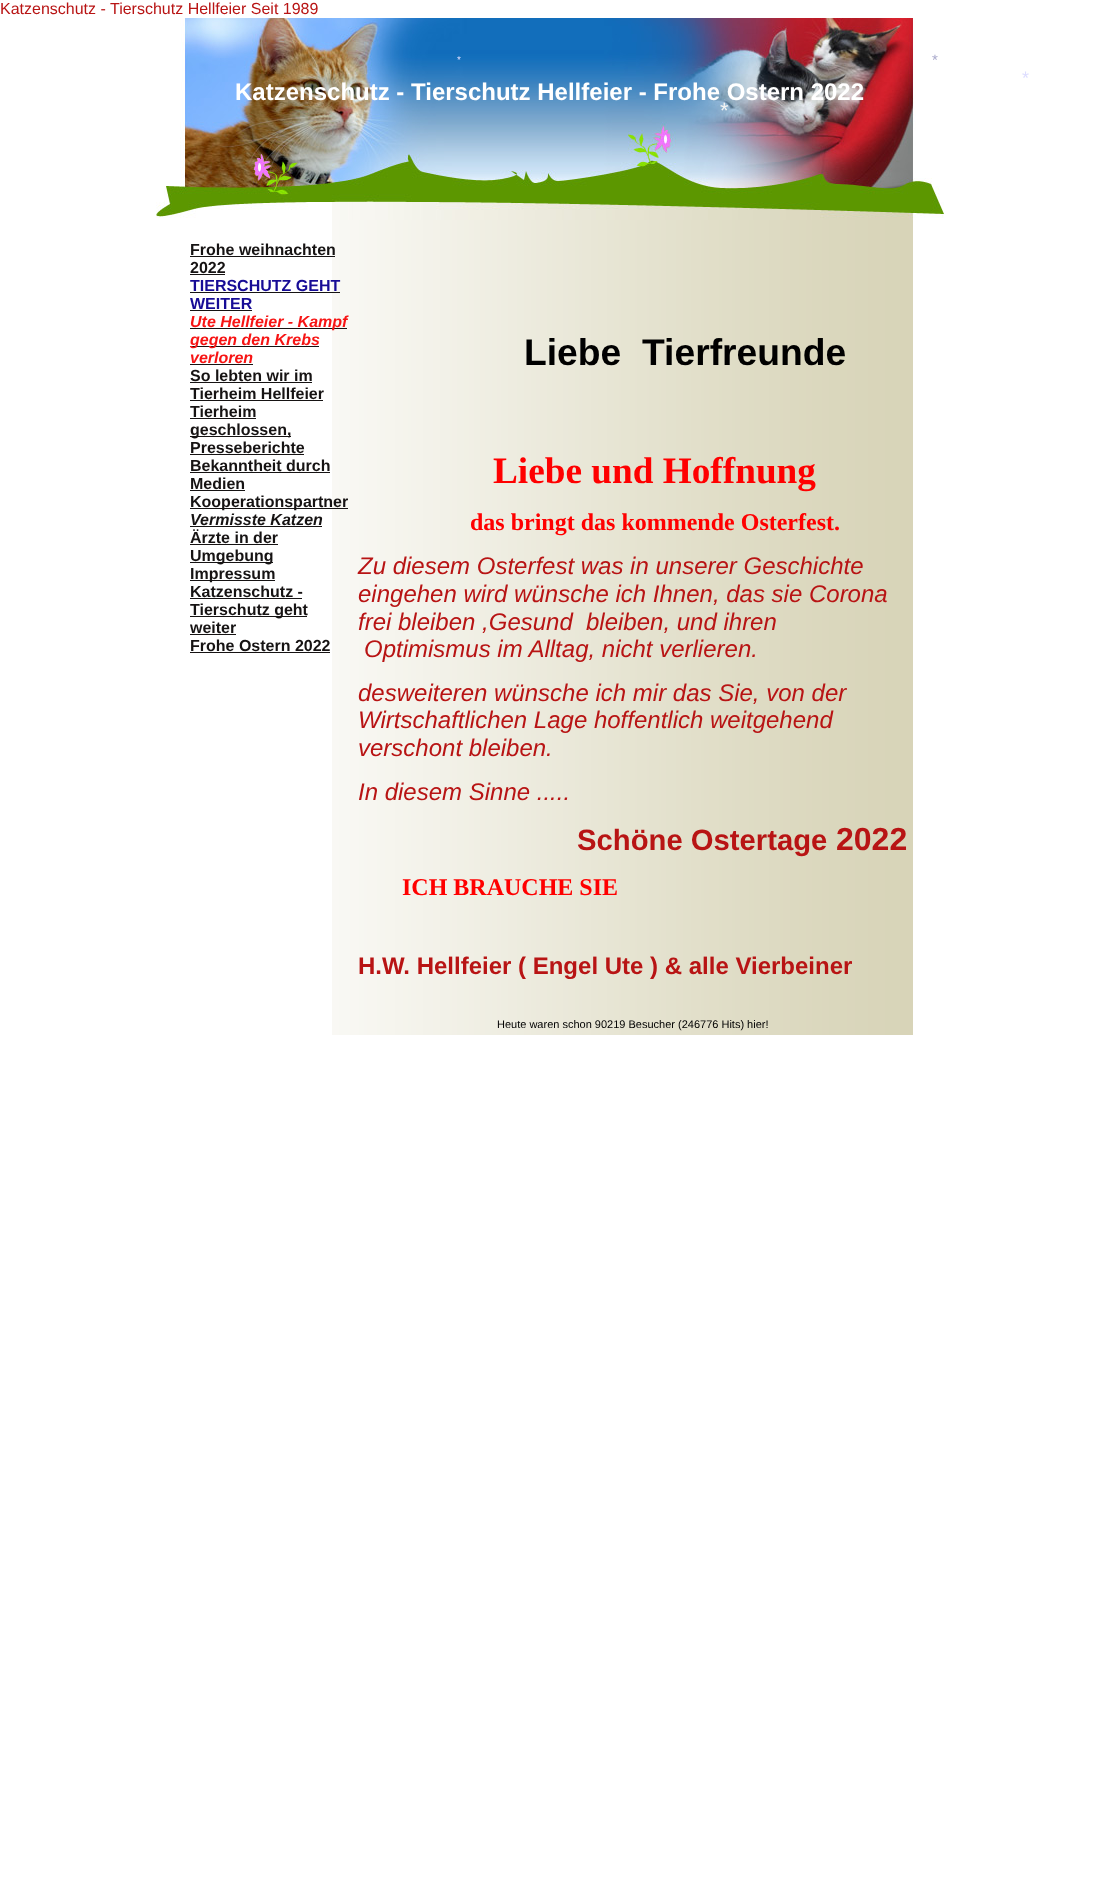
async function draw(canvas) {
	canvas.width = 1099;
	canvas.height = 1892;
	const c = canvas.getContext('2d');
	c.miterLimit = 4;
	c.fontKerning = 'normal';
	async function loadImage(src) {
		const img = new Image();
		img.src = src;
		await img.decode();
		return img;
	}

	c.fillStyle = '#fff';
	c.fillRect(0, 0, 1099, 1892);
	c.font = '16px Liberation Sans';
	c.fillStyle = '#b81414';
	c.fillText('Katzenschutz - Tierschutz Hellfeier Seit 1989', 0, 14);
	c.drawImage(await loadImage('img1.png'), 156, 18, 788, 202);
	c.font = '10px Liberation Sans';
	c.fillStyle = '#ddf';
	c.fillText('*', 457, 63);
	c.font = '15px Liberation Sans';
	c.fillStyle = '#aac';
	c.fillText('*', 932, 65);
	c.font = '18px Liberation Sans';
	c.fillStyle = '#ddf';
	c.fillText('*', 1022, 84);
	c.font = 'bold 24px Liberation Sans';
	c.fillStyle = '#fff';
	c.fillText('Katzenschutz - Tierschutz Hellfeier - Frohe Ostern 2022', 235, 100);
	c.drawImage(await loadImage('img2.png'), 332, 220, 581, 815);
	c.font = 'bold 16px Liberation Sans';
	c.fillStyle = '#161313';
	c.fillText('Frohe weihnachten', 190, 255);
	c.fillRect(190, 256, 145, 1);
	c.fillText('2022', 190, 273);
	c.fillRect(190, 274, 35, 1);
	c.fillStyle = '#170c96';
	c.fillText('TIERSCHUTZ GEHT', 190, 291);
	c.fillStyle = '#161313';
	c.fillRect(190, 292, 150, 1);
	c.fillStyle = '#170c96';
	c.fillText('WEITER', 190, 309);
	c.fillStyle = '#161313';
	c.fillRect(190, 310, 62, 1);
	c.fillRect(190, 328, 157, 1);
	c.font = 'italic bold 16px Liberation Sans';
	c.fillStyle = '#f71414';
	c.fillText('Ute Hellfeier - Kampf', 190, 327);
	c.fillStyle = '#161313';
	c.fillRect(190, 346, 129, 1);
	c.fillStyle = '#f71414';
	c.fillText('gegen den Krebs', 190, 345);
	c.fillText('verloren', 190, 363);
	c.fillStyle = '#161313';
	c.fillRect(190, 364, 63, 1);
	c.font = 'bold 16px Liberation Sans';
	c.fillText('So lebten wir im', 190, 381);
	c.fillRect(190, 382, 122, 1);
	c.fillText('Tierheim Hellfeier', 190, 399);
	c.fillRect(190, 400, 133, 1);
	c.fillText('Tierheim', 190, 417);
	c.fillRect(190, 418, 66, 1);
	c.fillRect(190, 436, 101, 1);
	c.fillText('geschlossen,', 190, 435);
	c.fillText('Presseberichte', 190, 453);
	c.fillRect(190, 454, 114, 1);
	c.fillText('Bekanntheit durch', 190, 471);
	c.fillRect(190, 472, 140, 1);
	c.fillText('Medien', 190, 489);
	c.fillRect(190, 490, 55, 1);
	c.fillRect(190, 508, 158, 1);
	c.fillText('Kooperationspartner', 190, 507);
	c.font = 'italic bold 16px Liberation Sans';
	c.fillText('Vermisste Katzen', 190, 525);
	c.fillRect(190, 526, 132, 1);
	c.font = 'bold 16px Liberation Sans';
	c.fillText('Ärzte in der', 190, 543);
	c.fillRect(190, 544, 88, 1);
	c.fillRect(190, 562, 83, 1);
	c.fillText('Umgebung', 190, 561);
	c.fillRect(190, 580, 85, 1);
	c.fillText('Impressum', 190, 579);
	c.fillText('Katzenschutz -', 190, 597);
	c.fillRect(190, 598, 112, 1);
	c.fillRect(190, 616, 117, 1);
	c.fillText('Tierschutz geht', 190, 615);
	c.fillText('weiter', 190, 633);
	c.fillRect(190, 634, 46, 1);
	c.fillText('Frohe Ostern 2022', 190, 651);
	c.fillRect(190, 652, 140, 1);
	c.font = 'bold 37.25px Liberation Sans';
	c.fillStyle = '#000';
	c.fillText('Liebe', 524, 365);
	c.fillText('Tierfreunde', 642, 365);
	c.font = 'bold 37.25px Liberation Serif';
	c.fillStyle = '#f00';
	c.fillText('Liebe und Hoffnung', 493, 483);
	c.font = 'bold 24px Liberation Serif';
	c.fillText('das bringt das kommende Osterfest.', 470, 530);
	c.font = 'italic 24px Liberation Sans';
	c.fillStyle = '#b81414';
	for (const [text, x, y] of [
		['Zu diesem Osterfest was in unserer Geschichte', 358, 574],
		['eingehen wird wünsche ich Ihnen, das sie Corona', 358, 602],
		['frei bleiben ,Gesund', 358, 630],
		['bleiben, und ihren', 586, 630],
		['Optimismus im Alltag, nicht verlieren.', 364, 657],
		['desweiteren wünsche ich mir das Sie, von der', 358, 701],
		['Wirtschaftlichen Lage hoffentlich weitgehend', 358, 728],
		['verschont bleiben.', 358, 756],
		['In diesem Sinne .....', 358, 800],
	]) {
		c.fillText(text, x, y);
	}
	c.font = 'bold 29.25px Liberation Sans';
	c.fillText('Schöne Ostertage', 577, 850);
	c.font = 'bold 32px Liberation Sans';
	c.fillText('2022', 836, 850);
	c.font = 'bold 24px Liberation Serif';
	c.fillStyle = '#f00';
	c.fillText('ICH BRAUCHE SIE', 402, 895);
	c.font = 'bold 24px Liberation Sans';
	c.fillStyle = '#b81414';
	c.fillText('H.W. Hellfeier ( Engel Ute ) & alle Vierbeiner', 358, 974);
	c.font = '11px Liberation Sans';
	c.fillStyle = '#000';
	c.fillText('Heute waren schon 90219 Besucher (246776 Hits) hier!', 497, 1028);
	c.font = '22px Liberation Sans';
	c.fillStyle = '#f3f3f3';
	c.fillText('*', 720, 118);
}

draw(document.querySelector('canvas'));
